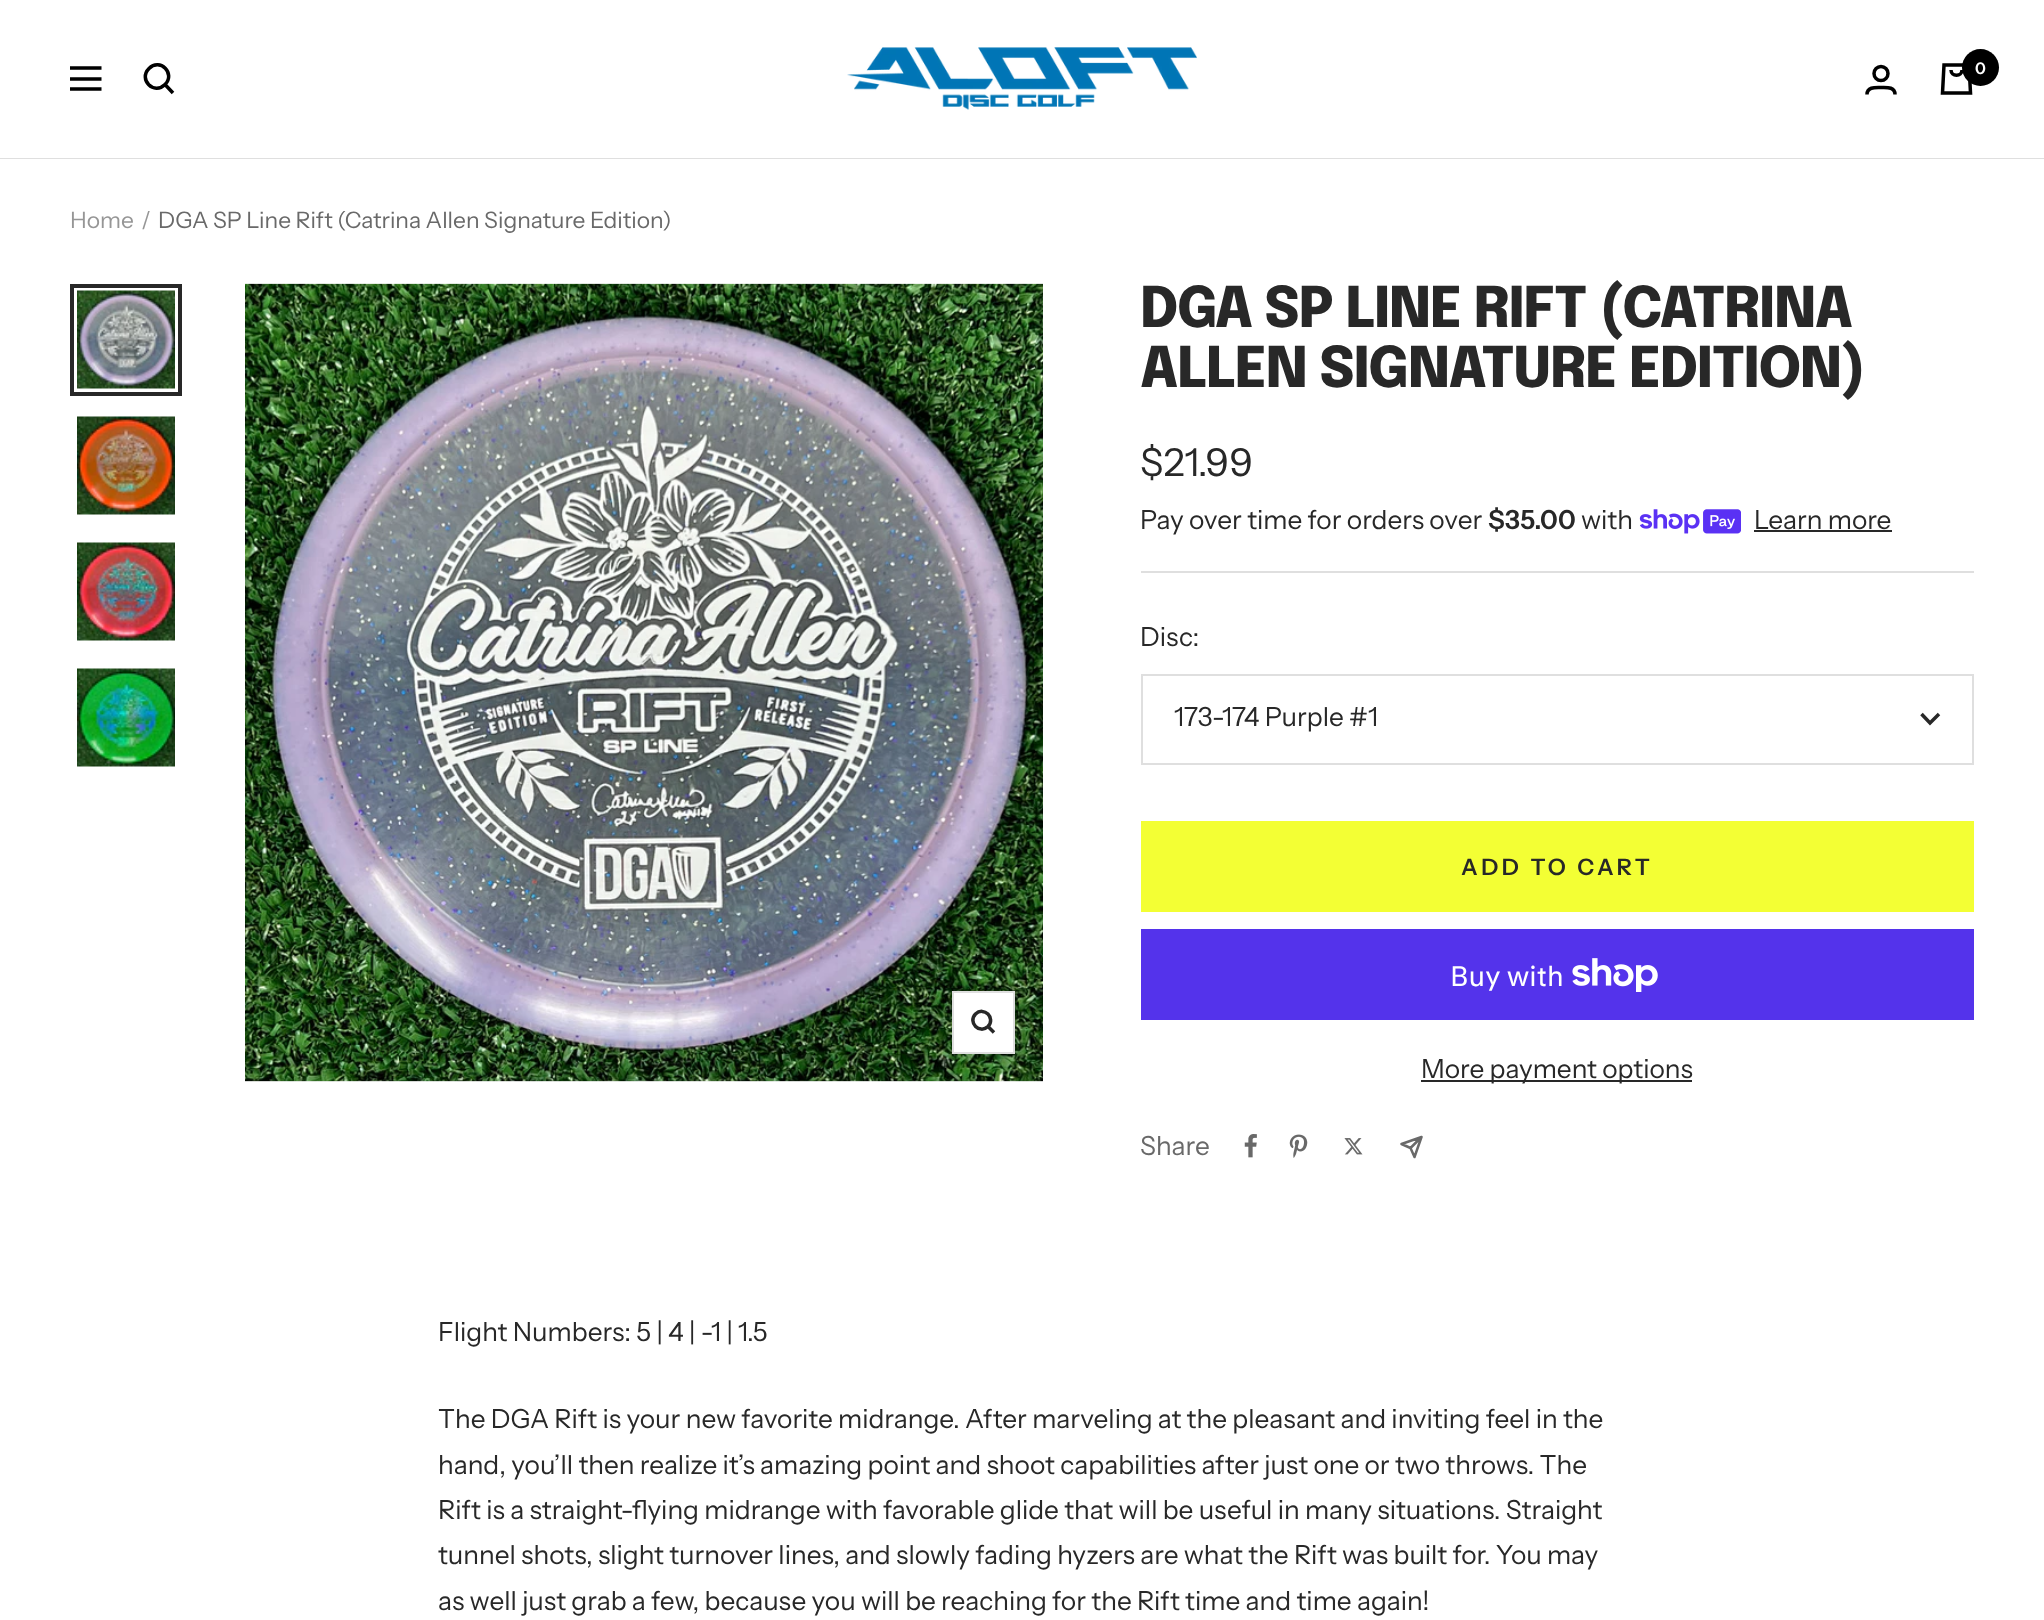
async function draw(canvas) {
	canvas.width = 2044;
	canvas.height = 1620;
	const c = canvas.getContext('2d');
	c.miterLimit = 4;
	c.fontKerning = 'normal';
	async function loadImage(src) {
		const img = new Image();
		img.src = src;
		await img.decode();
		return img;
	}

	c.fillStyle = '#fff';
	c.fillRect(0, 0, 2044, 1620);
	c.fillStyle = '#dfdfdf';
	c.fillRect(0, 158, 2044, 1);
	c.beginPath();
	c.moveTo(70, 68);
	c.lineTo(101.5, 68);
	c.moveTo(70, 89);
	c.lineTo(101.5, 89);
	c.closePath();
	c.moveTo(70, 79);
	c.lineTo(101.5, 79);
	c.closePath();
	c.strokeStyle = '#000';
	c.lineWidth = 3.5;
	c.stroke();
	c.beginPath();
	c.moveTo(165, 84.5);
	c.bezierCurveTo(176, 73.5, 160, 57.5, 149, 68.5);
	c.bezierCurveTo(138, 79.5, 154, 95.5, 165, 84.5);
	c.closePath();
	c.moveTo(165, 84.5);
	c.lineTo(173, 93);
	c.stroke();
	c.drawImage(await loadImage('img1.png'), 847, 47, 350, 63);
	c.beginPath();
	c.arc(1881, 73.5, 7, 0, 2 * Math.PI);
	c.stroke();
	c.beginPath();
	c.moveTo(1867, 94.5);
	c.bezierCurveTo(1867, 86.5, 1876, 87.5, 1881, 87.5);
	c.bezierCurveTo(1886.5, 87.5, 1895, 86.5, 1895, 94.5);
	c.stroke();
	c.beginPath();
	c.moveTo(1944, 65);
	c.lineTo(1969, 65);
	c.lineTo(1970.5, 93);
	c.lineTo(1942.5, 93);
	c.closePath();
	c.moveTo(1951, 70);
	c.bezierCurveTo(1951, 77, 1962, 77, 1962, 70);
	c.stroke();
	c.fillStyle = '#000';
	c.beginPath();
	c.arc(1980.5, 67.5, 18.5, 0, 2 * Math.PI);
	c.fill();
	c.font = '600 16px Instrument Sans';
	c.fillStyle = '#fff';
	c.fillText('0', 1975, 74);
	c.font = '22.75px Instrument Sans';
	c.fillStyle = '#969696';
	c.fillText('Home', 70, 228);
	c.fillText('/', 141, 228);
	c.fillStyle = '#696969';
	c.fillText('DGA SP Line Rift (Catrina Allen Signature Edition)', 158, 228);
	c.drawImage(await loadImage('img2.png'), 77, 290, 98, 99);
	c.strokeStyle = '#282828';
	c.lineWidth = 4;
	c.strokeRect(72, 286, 108, 108);
	c.drawImage(await loadImage('img3.png'), 77, 416, 98, 99);
	c.drawImage(await loadImage('img4.png'), 77, 542, 98, 99);
	c.drawImage(await loadImage('img5.png'), 77, 668, 98, 99);
	c.fillStyle = '#f5f5f5';
	c.fillRect(245, 1081, 798, 1);
	c.drawImage(await loadImage('img6.png'), 245, 283, 798, 799);
	c.fillStyle = '#fff';
	c.beginPath();
	c.rect(953, 992, 61, 61);
	c.fill();
	c.strokeStyle = '#dfdfdf';
	c.lineWidth = 2;
	c.stroke();
	c.beginPath();
	c.moveTo(988, 1026.5);
	c.bezierCurveTo(996, 1018, 984, 1006, 975.5, 1014);
	c.bezierCurveTo(967.5, 1022.5, 979.5, 1034.5, 988, 1026.5);
	c.closePath();
	c.moveTo(988, 1026.5);
	c.lineTo(994, 1032.5);
	c.strokeStyle = '#282828';
	c.lineWidth = 3.5;
	c.stroke();
	c.fillStyle = '#dfdfdf';
	c.fillRect(1141, 571, 833, 2);
	c.letterSpacing = '-1.4px';
	c.font = '800 56px Epilogue';
	c.fillStyle = '#282828';
	c.fillText('DGA SP LINE RIFT (CATRINA', 1140, 327);
	c.fillText('ALLEN SIGNATURE EDITION)', 1140, 387);
	c.letterSpacing = '0px';
	c.font = '38.5px Instrument Sans';
	c.fillText('$21.99', 1140, 476);
	c.font = '26.25px Instrument Sans';
	c.fillText('Pay over time for orders over', 1140, 529);
	c.font = '600 26.25px Instrument Sans';
	c.fillText('$35.00', 1488, 529);
	c.font = '26.25px Instrument Sans';
	c.fillText('with', 1581, 529);
	c.drawImage(await loadImage('img7.png'), 1639, 509, 102, 25);
	c.fillText('Learn more', 1754, 529);
	c.fillRect(1754, 530, 138, 2);
	c.fillText('Disc:', 1140, 646);
	c.strokeStyle = '#dfdfdf';
	c.lineWidth = 2;
	c.strokeRect(1142, 675, 831, 89);
	c.fillText('173-174 Purple #1', 1174, 726);
	c.beginPath();
	c.moveTo(1921.5, 714);
	c.lineTo(1930, 723);
	c.lineTo(1939, 714);
	c.strokeStyle = '#282828';
	c.lineWidth = 3.5;
	c.stroke();
	c.fillStyle = '#f3ff34';
	c.fillRect(1141, 821, 833, 91);
	c.letterSpacing = '3.5px';
	c.font = '600 22.75px Instrument Sans';
	c.fillStyle = '#282828';
	c.fillText('ADD TO CART', 1461, 875);
	c.fillStyle = '#5433eb';
	c.fillRect(1141, 929, 833, 91);
	c.letterSpacing = '0px';
	c.font = '28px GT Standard';
	c.fillStyle = '#fff';
	c.fillText('Buy with', 1450, 986);
	c.drawImage(await loadImage('img8.png'), 1572, 958, 86, 34);
	c.fillStyle = '#282828';
	c.fillRect(1421, 1080, 271, 2);
	c.font = '26.25px Instrument Sans';
	c.fillText('More payment options', 1421, 1078);
	c.fillStyle = '#696969';
	c.fillText('Share', 1140, 1155);
	c.drawImage(await loadImage('img9.png'), 1244, 1134, 13, 24);
	c.drawImage(await loadImage('img10.png'), 1289, 1134, 19, 24);
	c.drawImage(await loadImage('img11.png'), 1344, 1138, 19, 17);
	c.beginPath();
	c.moveTo(1421.5, 1137);
	c.lineTo(1414.5, 1157);
	c.lineTo(1410.5, 1148);
	c.moveTo(1421.5, 1137);
	c.lineTo(1401.5, 1144);
	c.lineTo(1410.5, 1148);
	c.moveTo(1421.5, 1137);
	c.lineTo(1410.5, 1148);
	c.strokeStyle = '#696969';
	c.lineWidth = 2.5;
	c.lineCap = 'round';
	c.lineJoin = 'round';
	c.stroke();
	c.fillStyle = '#282828';
	for (const [text, x, y] of [
		['Flight Numbers: 5 | 4 | -1 | 1.5', 438, 1341],
		['The DGA Rift is your new favorite midrange. After marveling at the pleasant and inviting feel in the', 438, 1428],
		['hand, you’ll then realize it’s amazing point and shoot capabilities after just one or two throws. The', 438, 1474],
		['Rift is a straight-flying midrange with favorable glide that will be useful in many situations. Straight', 438, 1519],
		['tunnel shots, slight turnover lines, and slowly fading hyzers are what the Rift was built for. You may', 438, 1564],
		['as well just grab a few, because you will be reaching for the Rift time and time again!', 438, 1610],
	]) {
		c.fillText(text, x, y);
	}
}

draw(document.querySelector('canvas'));
